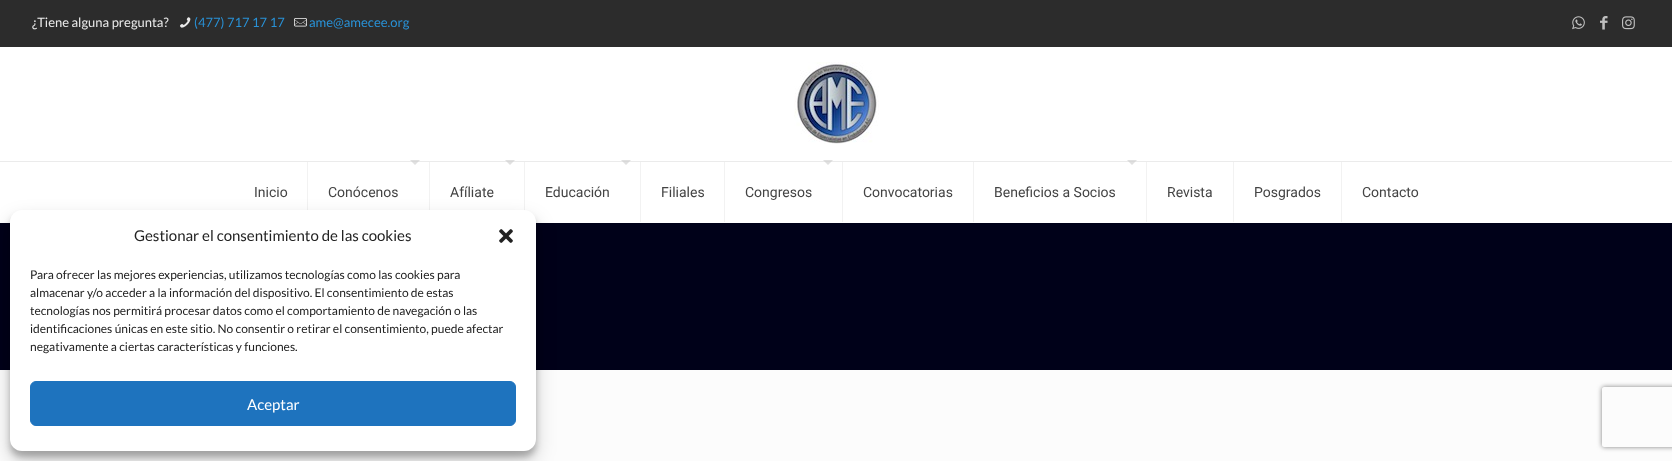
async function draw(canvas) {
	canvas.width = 1672;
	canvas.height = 461;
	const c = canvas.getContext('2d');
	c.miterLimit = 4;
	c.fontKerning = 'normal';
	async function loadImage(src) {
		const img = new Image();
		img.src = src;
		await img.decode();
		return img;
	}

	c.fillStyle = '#fcfcfc';
	c.fillRect(0, 0, 1672, 461);
	c.fillStyle = '#000119';
	c.fillRect(0, 223, 1672, 147);
	c.fillStyle = '#2c2c2c';
	c.fillRect(0, 0, 1672, 47);
	c.font = '13px Lato';
	c.fillStyle = '#eaeaea';
	c.fillText('¿Tiene alguna pregunta?', 32, 27);
	c.drawImage(await loadImage('img1.png'), 180, 17, 11, 11);
	c.fillStyle = '#2991d6';
	c.fillText('(477) 717 17 17', 194, 27);
	c.drawImage(await loadImage('img2.png'), 294, 18, 13, 9);
	c.fillText('ame@amecee.org', 309, 27);
	c.drawImage(await loadImage('img3.png'), 1572, 16, 13, 14);
	c.drawImage(await loadImage('img4.png'), 1600, 16, 8, 14);
	c.drawImage(await loadImage('img5.png'), 1622, 16, 13, 14);
	c.fillStyle = '#fff';
	c.fillRect(0, 47, 1672, 176);
	c.fillStyle = '#ebebeb';
	c.fillRect(0, 161, 1672, 1);
	c.drawImage(await loadImage('img6.png'), 794, 62, 85, 82);
	c.fillStyle = '#f2f2f2';
	c.fillRect(307, 162, 1, 48);
	c.font = '14px Roboto';
	c.fillStyle = '#444';
	c.fillText('Inicio', 254, 197);
	c.fillStyle = '#cccccc99';
	c.beginPath();
	c.moveTo(410, 160);
	c.lineTo(420, 160);
	c.lineTo(415, 165);
	c.closePath();
	c.fill();
	c.fillStyle = '#f2f2f2';
	c.fillRect(429, 162, 1, 48);
	c.fillStyle = '#444';
	c.fillText('Conócenos', 328, 197);
	c.fillStyle = '#cccccc99';
	c.beginPath();
	c.moveTo(505, 160);
	c.lineTo(515, 160);
	c.lineTo(510, 165);
	c.closePath();
	c.fill();
	c.fillStyle = '#f2f2f2';
	c.fillRect(524, 162, 1, 49);
	c.fillStyle = '#444';
	c.fillText('Afíliate', 450, 197);
	c.fillStyle = '#cccccc99';
	c.beginPath();
	c.moveTo(621, 160);
	c.lineTo(631, 160);
	c.lineTo(626, 165);
	c.closePath();
	c.fill();
	c.fillStyle = '#f2f2f2';
	c.fillRect(640, 162, 1, 60);
	c.fillStyle = '#444';
	c.fillText('Educación', 545, 197);
	c.fillStyle = '#f2f2f2';
	c.fillRect(724, 162, 1, 60);
	c.fillStyle = '#444';
	c.fillText('Filiales', 661, 197);
	c.fillStyle = '#cccccc99';
	c.beginPath();
	c.moveTo(823, 160);
	c.lineTo(833, 160);
	c.lineTo(828, 165);
	c.closePath();
	c.fill();
	c.fillStyle = '#f2f2f2';
	c.fillRect(842, 162, 1, 60);
	c.fillStyle = '#444';
	c.fillText('Congresos', 745, 197);
	c.fillStyle = '#f2f2f2';
	c.fillRect(973, 162, 1, 60);
	c.fillStyle = '#444';
	c.fillText('Convocatorias', 863, 197);
	c.fillStyle = '#cccccc99';
	c.beginPath();
	c.moveTo(1127, 160);
	c.lineTo(1137, 160);
	c.lineTo(1132, 165);
	c.closePath();
	c.fill();
	c.fillStyle = '#f2f2f2';
	c.fillRect(1146, 162, 1, 60);
	c.fillStyle = '#444';
	c.fillText('Beneficios a Socios', 994, 197);
	c.fillStyle = '#f2f2f2';
	c.fillRect(1233, 162, 1, 60);
	c.fillStyle = '#444';
	c.fillText('Revista', 1167, 197);
	c.fillStyle = '#f2f2f2';
	c.fillRect(1341, 162, 1, 60);
	c.fillStyle = '#444';
	c.fillText('Posgrados', 1254, 197);
	c.fillText('Contacto', 1362, 197);
	c.fillStyle = '#0000003b';
	c.filter = 'blur(3px)';
	c.beginPath();
	c.roundRect(10, 216, 526, 241, 12);
	c.fill();
	c.filter = 'none';
	c.fillStyle = '#00000030';
	c.filter = 'blur(10px)';
	c.beginPath();
	c.roundRect(10, 220, 526, 241, 12);
	c.fill();
	c.filter = 'none';
	c.fillStyle = '#fff';
	c.beginPath();
	c.roundRect(10, 210, 526, 241, 12);
	c.fill();
	c.font = '15px Lato';
	c.fillStyle = '#222';
	c.fillText('Gestionar el consentimiento de las cookies', 134, 241);
	c.drawImage(await loadImage('img7.png'), 499, 229, 14, 14);
	c.font = '12px Lato';
	for (const [text, x, y] of [
		['Para ofrecer las mejores experiencias, utilizamos tecnologías como las cookies para', 30, 279],
		['almacenar y/o acceder a la información del dispositivo. El consentimiento de estas', 30, 297],
		['tecnologías nos permitirá procesar datos como el comportamiento de navegación o las', 30, 315],
		['identificaciones únicas en este sitio. No consentir o retirar el consentimiento, puede afectar', 30, 333],
		['negativamente a ciertas características y funciones.', 30, 351],
	]) {
		c.fillText(text, x, y);
	}
	c.fillStyle = '#1e73be';
	c.beginPath();
	c.roundRect(30.5, 381.5, 485, 44, 5.5);
	c.fill();
	c.strokeStyle = '#1e73be';
	c.stroke();
	c.font = '15px Lato';
	c.fillStyle = '#fff';
	c.fillText('Aceptar', 247, 410);
	c.save();
	c.beginPath();
	c.moveTo(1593, 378);
	c.lineTo(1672, 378);
	c.lineTo(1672, 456);
	c.lineTo(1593, 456);
	c.closePath();
	c.moveTo(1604, 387);
	c.lineTo(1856, 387);
	c.bezierCurveTo(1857, 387, 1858, 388, 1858, 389);
	c.lineTo(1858, 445);
	c.bezierCurveTo(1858, 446, 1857, 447, 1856, 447);
	c.lineTo(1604, 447);
	c.bezierCurveTo(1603, 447, 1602, 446, 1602, 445);
	c.lineTo(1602, 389);
	c.bezierCurveTo(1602, 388, 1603, 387, 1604, 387);
	c.closePath();
	c.clip('evenodd');
	c.fillStyle = '#808080';
	c.filter = 'blur(2.5px)';
	c.beginPath();
	c.roundRect(1602, 387, 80, 60, 2);
	c.fill();
	c.filter = 'none';
	c.restore();
}

draw(document.querySelector('canvas'));
